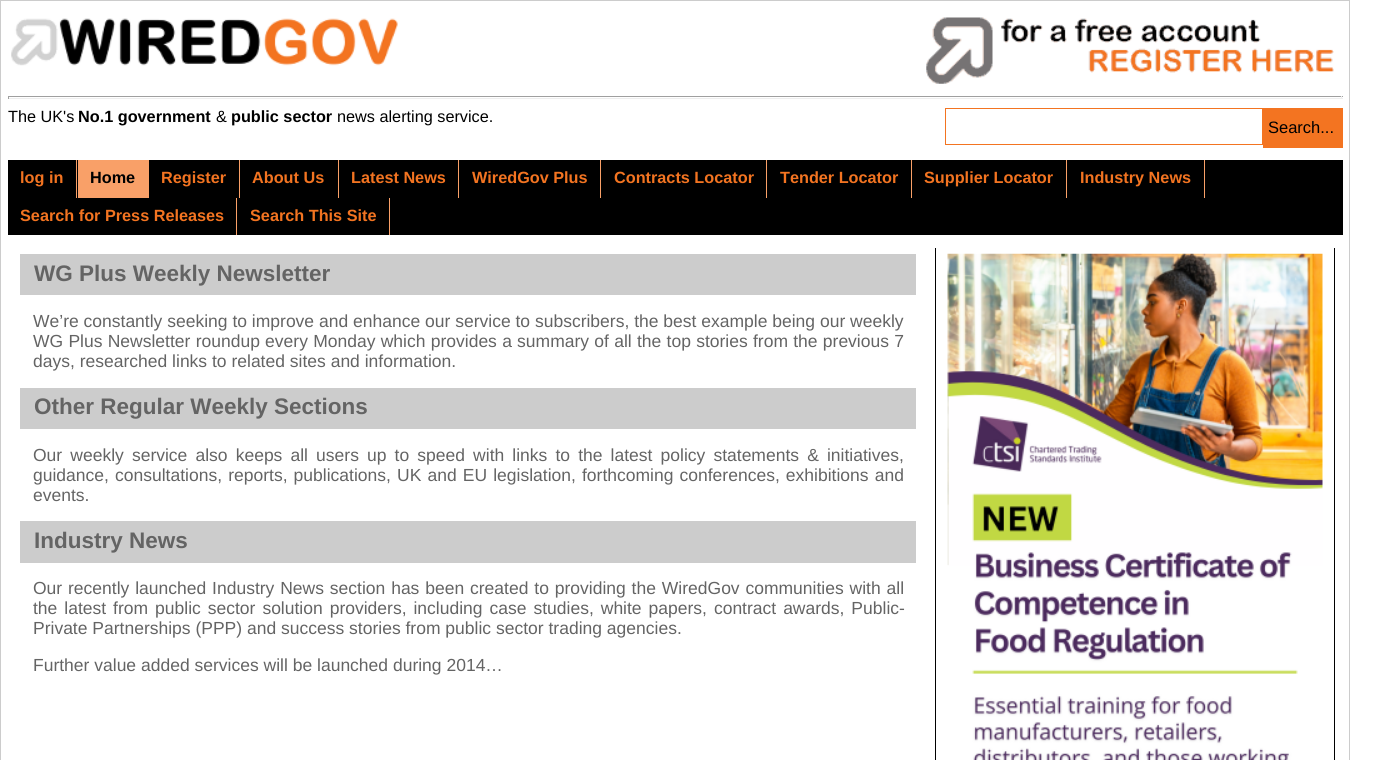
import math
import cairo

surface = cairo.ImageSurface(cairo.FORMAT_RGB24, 1377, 760)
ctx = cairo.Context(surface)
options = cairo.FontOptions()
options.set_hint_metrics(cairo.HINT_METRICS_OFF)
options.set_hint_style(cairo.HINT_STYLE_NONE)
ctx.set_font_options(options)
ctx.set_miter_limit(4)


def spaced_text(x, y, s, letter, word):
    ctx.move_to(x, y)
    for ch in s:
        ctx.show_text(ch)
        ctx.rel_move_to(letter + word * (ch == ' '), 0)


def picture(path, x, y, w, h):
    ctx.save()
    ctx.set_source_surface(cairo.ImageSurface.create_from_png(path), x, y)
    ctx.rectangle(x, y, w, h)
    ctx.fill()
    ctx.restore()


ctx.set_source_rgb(1, 1, 1)
ctx.paint()
ctx.rectangle(0.5, 0.5, 1349, 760)
ctx.set_source_rgb(0.8, 0.8, 0.8)
ctx.set_line_width(1)
ctx.stroke()
picture("img1.png", 11, 18, 387, 48)
picture("img2.png", 926, 17, 408, 67)
ctx.set_source_rgb(0.624, 0.624, 0.624)
ctx.rectangle(8, 96, 1335, 1)
ctx.fill()
ctx.set_source_rgb(0.933, 0.933, 0.933)
ctx.rectangle(1341, 96, 1, 3)
ctx.fill()
ctx.rectangle(8, 98, 1335, 1)
ctx.fill()
ctx.set_source_rgb(0.624, 0.624, 0.624)
ctx.rectangle(8, 96, 1, 3)
ctx.fill()
ctx.select_font_face("Liberation Sans")
ctx.set_font_size(16.25)
ctx.set_source_rgb(0, 0, 0)
ctx.move_to(8, 122)
ctx.show_text("The UK's")
ctx.select_font_face("Liberation Sans", cairo.FONT_SLANT_NORMAL, cairo.FONT_WEIGHT_BOLD)
ctx.move_to(78, 122)
ctx.show_text("No.1 government")
ctx.select_font_face("Liberation Sans")
ctx.move_to(216, 122)
ctx.show_text("&")
ctx.select_font_face("Liberation Sans", cairo.FONT_SLANT_NORMAL, cairo.FONT_WEIGHT_BOLD)
ctx.move_to(231, 122)
ctx.show_text("public sector")
ctx.select_font_face("Liberation Sans")
ctx.move_to(337, 122)
ctx.show_text("news alerting service.")
ctx.rectangle(945.5, 108.5, 317, 36)
ctx.set_source_rgb(0.953, 0.455, 0.129)
ctx.stroke()
ctx.rectangle(1263, 108, 80, 40)
ctx.fill()
ctx.set_font_size(16.5)
ctx.set_source_rgb(0, 0, 0)
ctx.move_to(1268, 133)
ctx.show_text("Search...")
ctx.rectangle(8, 160, 1335, 75)
ctx.fill()
ctx.set_source_rgb(0.976, 0.627, 0.408)
ctx.rectangle(76, 160, 1, 38)
ctx.fill()
ctx.select_font_face("Liberation Sans", cairo.FONT_SLANT_NORMAL, cairo.FONT_WEIGHT_BOLD)
ctx.set_font_size(16.25)
ctx.set_source_rgb(0.953, 0.455, 0.129)
ctx.move_to(20, 183)
ctx.show_text("log in")
ctx.set_source_rgb(0.976, 0.627, 0.408)
ctx.rectangle(78, 160, 71, 38)
ctx.fill()
ctx.set_source_rgb(0, 0, 0)
ctx.move_to(90, 183)
ctx.show_text("Home")
ctx.set_source_rgb(0.976, 0.627, 0.408)
ctx.rectangle(239, 160, 1, 38)
ctx.fill()
ctx.set_source_rgb(0.953, 0.455, 0.129)
ctx.move_to(161, 183)
ctx.show_text("Register")
ctx.set_source_rgb(0.976, 0.627, 0.408)
ctx.rectangle(338, 160, 1, 38)
ctx.fill()
ctx.set_source_rgb(0.953, 0.455, 0.129)
ctx.move_to(252, 183)
ctx.show_text("About Us")
ctx.set_source_rgb(0.976, 0.627, 0.408)
ctx.rectangle(458, 160, 1, 38)
ctx.fill()
ctx.set_source_rgb(0.953, 0.455, 0.129)
ctx.move_to(351, 183)
ctx.show_text("Latest News")
ctx.set_source_rgb(0.976, 0.627, 0.408)
ctx.rectangle(600, 160, 1, 38)
ctx.fill()
ctx.set_source_rgb(0.953, 0.455, 0.129)
ctx.move_to(472, 183)
ctx.show_text("WiredGov Plus")
ctx.set_source_rgb(0.976, 0.627, 0.408)
ctx.rectangle(766, 160, 1, 38)
ctx.fill()
ctx.set_source_rgb(0.953, 0.455, 0.129)
ctx.move_to(614, 183)
ctx.show_text("Contracts Locator")
ctx.set_source_rgb(0.976, 0.627, 0.408)
ctx.rectangle(911, 160, 1, 38)
ctx.fill()
ctx.set_source_rgb(0.953, 0.455, 0.129)
ctx.move_to(780, 183)
ctx.show_text("Tender Locator")
ctx.set_source_rgb(0.976, 0.627, 0.408)
ctx.rectangle(1066, 160, 1, 38)
ctx.fill()
ctx.set_source_rgb(0.953, 0.455, 0.129)
ctx.move_to(924, 183)
ctx.show_text("Supplier Locator")
ctx.set_source_rgb(0.976, 0.627, 0.408)
ctx.rectangle(1204, 160, 1, 38)
ctx.fill()
ctx.set_source_rgb(0.953, 0.455, 0.129)
ctx.move_to(1080, 183)
ctx.show_text("Industry News")
ctx.set_source_rgb(0.976, 0.627, 0.408)
ctx.rectangle(236, 198, 1, 37)
ctx.fill()
ctx.set_source_rgb(0.953, 0.455, 0.129)
ctx.move_to(20, 221)
ctx.show_text("Search for Press Releases")
ctx.set_source_rgb(0.976, 0.627, 0.408)
ctx.rectangle(389, 198, 1, 37)
ctx.fill()
ctx.set_source_rgb(0.953, 0.455, 0.129)
ctx.move_to(250, 221)
ctx.show_text("Search This Site")
ctx.set_source_rgb(0.8, 0.8, 0.8)
ctx.rectangle(20, 254, 896, 41)
ctx.fill()
ctx.set_font_size(22.5)
ctx.set_source_rgb(0.392, 0.392, 0.392)
ctx.move_to(34, 281)
ctx.show_text("WG Plus Weekly Newsletter")
ctx.select_font_face("Liberation Sans")
ctx.set_font_size(17.5)
ctx.move_to(33, 327)
ctx.show_text("We’re constantly seeking to improve and enhance our service to subscribers, the best example being our weekly")
spaced_text(33, 347, "WG Plus Newsletter roundup every Monday which provides a summary of all the top stories from the previous 7", 0, 0.4)
ctx.move_to(33, 367)
ctx.show_text("days, researched links to related sites and information.")
ctx.set_source_rgb(0.8, 0.8, 0.8)
ctx.rectangle(20, 388, 896, 41)
ctx.fill()
ctx.select_font_face("Liberation Sans", cairo.FONT_SLANT_NORMAL, cairo.FONT_WEIGHT_BOLD)
ctx.set_font_size(22.5)
ctx.set_source_rgb(0.392, 0.392, 0.392)
ctx.move_to(34, 414)
ctx.show_text("Other Regular Weekly Sections")
ctx.select_font_face("Liberation Sans")
ctx.set_font_size(17.5)
spaced_text(33, 461, "Our weekly service also keeps all users up to speed with links to the latest policy statements & initiatives,", 0, 3.25)
spaced_text(33, 481, "guidance, consultations, reports, publications, UK and EU legislation, forthcoming conferences, exhibitions and", 0, 1.25)
ctx.move_to(33, 501)
ctx.show_text("events.")
ctx.set_source_rgb(0.8, 0.8, 0.8)
ctx.rectangle(20, 521, 896, 42)
ctx.fill()
ctx.select_font_face("Liberation Sans", cairo.FONT_SLANT_NORMAL, cairo.FONT_WEIGHT_BOLD)
ctx.set_font_size(22.5)
ctx.set_source_rgb(0.392, 0.392, 0.392)
ctx.move_to(34, 548)
ctx.show_text("Industry News")
ctx.select_font_face("Liberation Sans")
ctx.set_font_size(17.5)
spaced_text(33, 594, "Our recently launched Industry News section has been created to providing the WiredGov communities with all", 0, 1)
spaced_text(33, 614, "the latest from public sector solution providers, including case studies, white papers, contract awards, Public-", 0, 2.1)
ctx.move_to(33, 634)
ctx.show_text("Private Partnerships (PPP) and success stories from public sector trading agencies.")
ctx.move_to(33, 671)
ctx.show_text("Further value added services will be launched during 2014…")
ctx.set_source_rgb(0, 0, 0)
ctx.rectangle(1334, 248, 1, 512)
ctx.fill()
ctx.rectangle(935, 248, 1, 512)
ctx.fill()
picture("img3.png", 947, 253, 376, 507)
surface.write_to_png("page.png")
